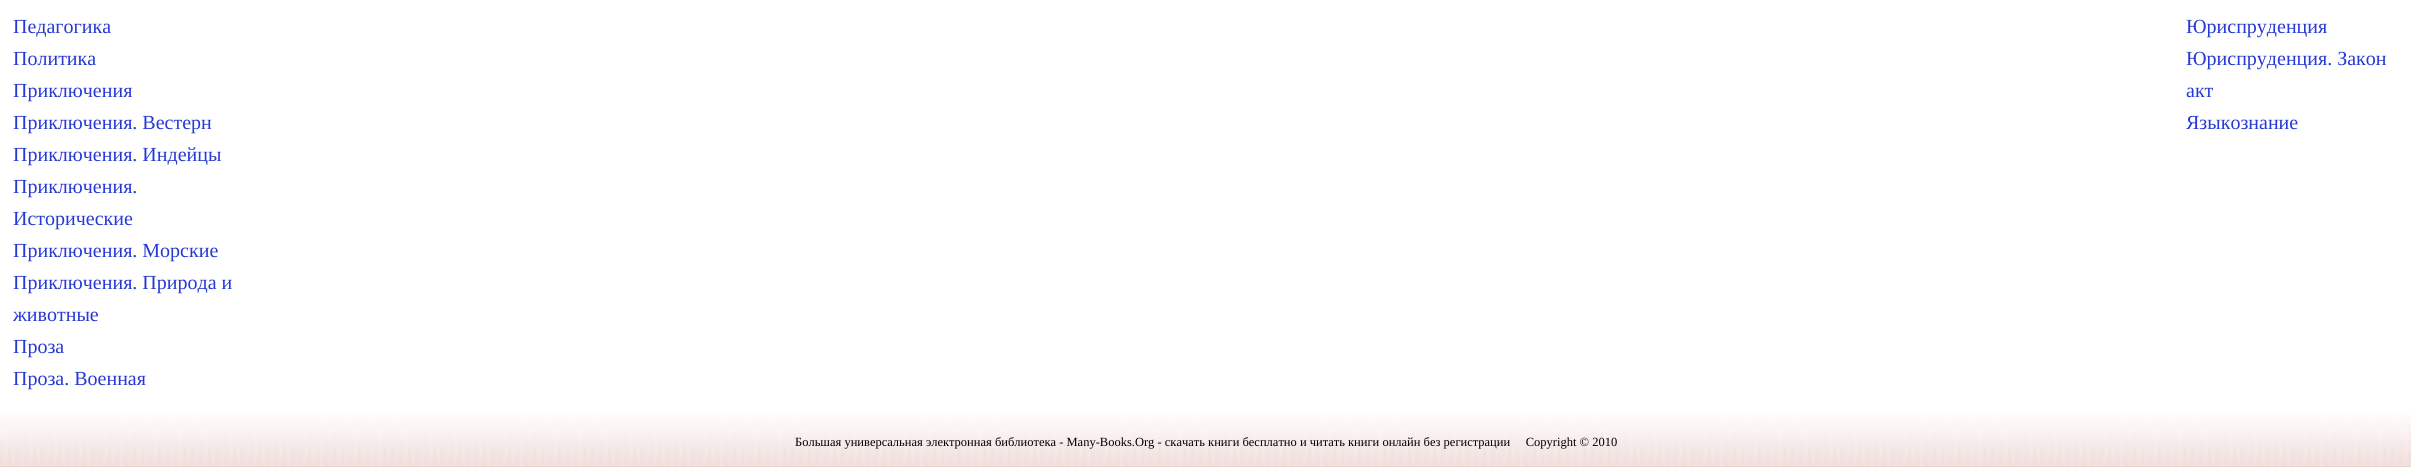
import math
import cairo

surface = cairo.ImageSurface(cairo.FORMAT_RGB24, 2411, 467)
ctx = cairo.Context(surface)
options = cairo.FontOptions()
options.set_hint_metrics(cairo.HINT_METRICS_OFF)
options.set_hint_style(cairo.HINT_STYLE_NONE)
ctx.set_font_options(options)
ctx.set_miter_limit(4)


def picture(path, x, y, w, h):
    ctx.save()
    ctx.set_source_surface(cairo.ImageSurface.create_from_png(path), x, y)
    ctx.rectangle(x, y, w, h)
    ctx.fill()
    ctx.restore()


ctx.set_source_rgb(1, 1, 1)
ctx.paint()
ctx.select_font_face("Liberation Serif")
ctx.set_font_size(20)
ctx.set_source_rgb(0.145, 0.224, 0.831)
ctx.move_to(13, 33)
ctx.show_text("Педагогика")
ctx.move_to(13, 65)
ctx.show_text("Политика")
ctx.move_to(13, 97)
ctx.show_text("Приключения")
ctx.move_to(13, 129)
ctx.show_text("Приключения. Вестерн")
ctx.move_to(13, 161)
ctx.show_text("Приключения. Индейцы")
ctx.move_to(13, 193)
ctx.show_text("Приключения.")
ctx.move_to(13, 225)
ctx.show_text("Исторические")
ctx.move_to(13, 257)
ctx.show_text("Приключения. Морские")
ctx.move_to(13, 289)
ctx.show_text("Приключения. Природа и")
ctx.move_to(13, 321)
ctx.show_text("животные")
ctx.move_to(13, 353)
ctx.show_text("Проза")
ctx.move_to(13, 385)
ctx.show_text("Проза. Военная")
ctx.move_to(2186, 33)
ctx.show_text("Юриспруденция")
ctx.move_to(2186, 65)
ctx.show_text("Юриспруденция. Закон")
ctx.move_to(2186, 97)
ctx.show_text("акт")
ctx.move_to(2186, 129)
ctx.show_text("Языкознание")
picture("img1.png", 0, 413, 2411, 54)
ctx.set_font_size(12.5)
ctx.set_source_rgb(0, 0, 0)
ctx.move_to(795, 446)
ctx.show_text("Большая универсальная электронная библиотека - Many-Books.Org - скачать книги бесплатно и читать книги онлайн без регистрации     Copyright © 2010")
surface.write_to_png("page.png")
